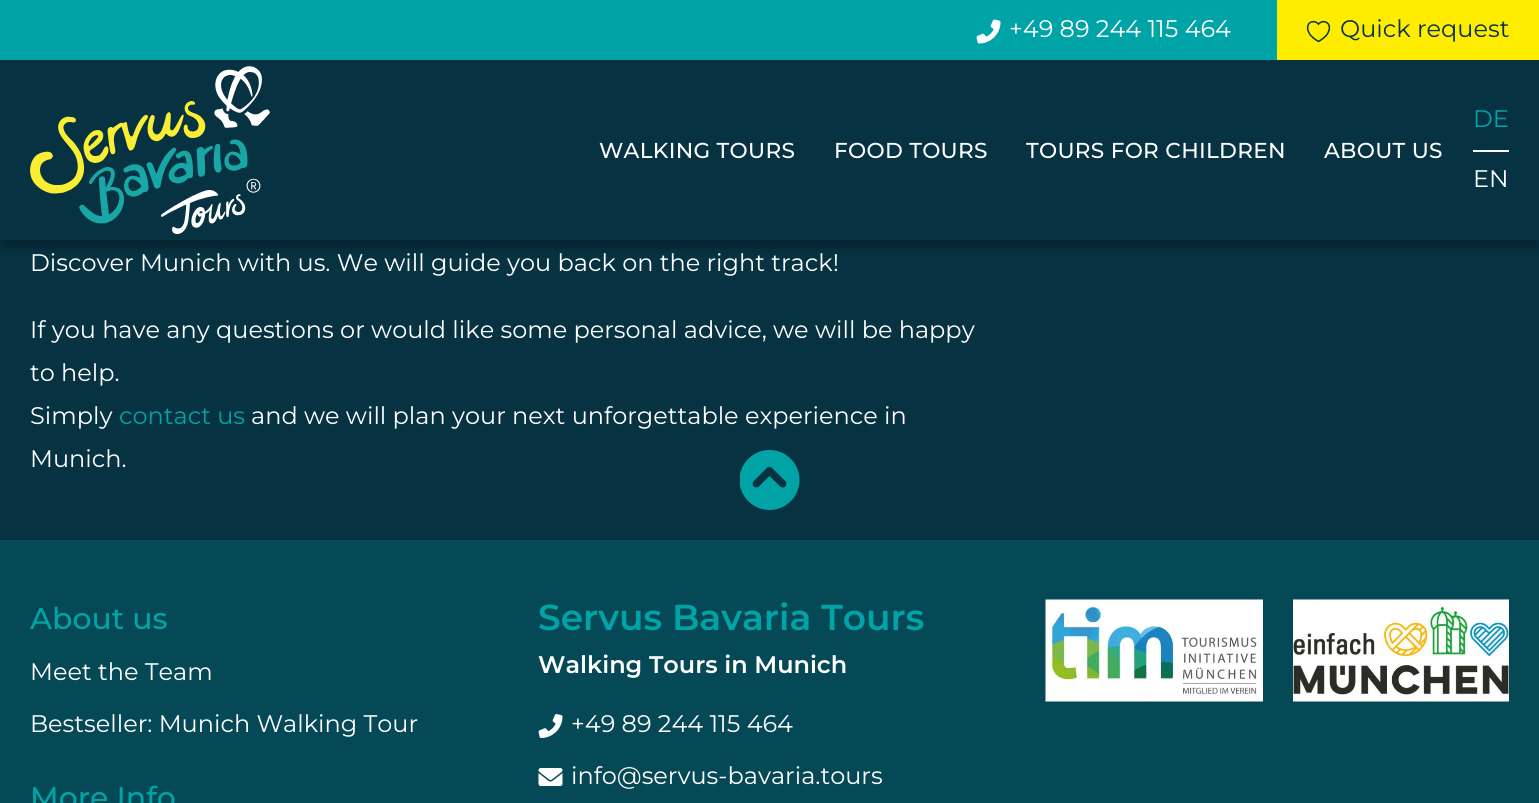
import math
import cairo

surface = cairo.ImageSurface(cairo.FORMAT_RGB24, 1539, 803)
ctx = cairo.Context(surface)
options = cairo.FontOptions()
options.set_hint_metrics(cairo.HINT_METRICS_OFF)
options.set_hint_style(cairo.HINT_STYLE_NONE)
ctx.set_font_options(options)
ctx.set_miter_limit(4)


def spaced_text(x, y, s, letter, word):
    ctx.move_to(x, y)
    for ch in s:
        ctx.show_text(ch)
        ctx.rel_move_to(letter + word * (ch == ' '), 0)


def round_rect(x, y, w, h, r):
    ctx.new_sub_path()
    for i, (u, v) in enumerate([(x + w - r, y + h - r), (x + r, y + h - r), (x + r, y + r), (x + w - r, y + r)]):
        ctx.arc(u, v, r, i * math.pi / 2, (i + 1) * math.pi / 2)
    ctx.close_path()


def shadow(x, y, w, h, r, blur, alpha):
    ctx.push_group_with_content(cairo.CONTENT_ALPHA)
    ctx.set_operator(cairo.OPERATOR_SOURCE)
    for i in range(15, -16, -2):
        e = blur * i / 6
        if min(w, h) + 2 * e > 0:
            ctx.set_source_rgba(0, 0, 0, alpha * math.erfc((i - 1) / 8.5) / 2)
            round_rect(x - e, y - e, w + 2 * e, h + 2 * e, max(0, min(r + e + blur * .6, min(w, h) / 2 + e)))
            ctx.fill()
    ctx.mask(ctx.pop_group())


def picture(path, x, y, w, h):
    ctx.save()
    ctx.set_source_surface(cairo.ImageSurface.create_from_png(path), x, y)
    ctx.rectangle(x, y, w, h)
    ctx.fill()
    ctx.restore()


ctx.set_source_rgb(0.027, 0.196, 0.259)
ctx.paint()
ctx.set_source_rgb(0, 0, 0)
shadow(0, 8, 1539, 240, 0, 5, 0.26)
ctx.set_source_rgb(0.027, 0.196, 0.259)
ctx.rectangle(0, 60, 1539, 180)
ctx.fill()
ctx.set_source_rgb(0, 0.639, 0.651)
ctx.rectangle(0, 0, 1277, 60)
ctx.fill()
picture("img1.png", 976, 19, 25, 25)
ctx.select_font_face("Montserrat Thin")
ctx.set_font_size(24)
ctx.set_source_rgb(1, 1, 1)
ctx.move_to(1009, 37)
ctx.show_text("+49 89 244 115 464")
ctx.set_source_rgb(1, 0.929, 0)
ctx.rectangle(1277, 0, 262, 60)
ctx.fill()
picture("img2.png", 1306, 20, 25, 23)
ctx.set_source_rgb(0.027, 0.196, 0.259)
ctx.move_to(1340, 37)
ctx.show_text("Quick request")
picture("img3.png", 30, 66, 240, 168)
ctx.select_font_face("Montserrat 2 Thin")
ctx.set_font_size(21.6)
ctx.set_source_rgb(1, 1, 1)
spaced_text(599, 158, "WALKING TOURS", 0.3, 0)
spaced_text(834, 158, "FOOD TOURS", 0.3, 0)
spaced_text(1026, 158, "TOURS FOR CHILDREN", 0.3, 0)
spaced_text(1324, 158, "ABOUT US", 0.3, 0)
ctx.select_font_face("Montserrat Thin")
ctx.set_font_size(24)
ctx.set_source_rgb(0, 0.639, 0.651)
ctx.move_to(1473, 127)
ctx.show_text("DE")
ctx.set_source_rgb(1, 1, 1)
ctx.rectangle(1473, 150, 36, 2)
ctx.fill()
ctx.move_to(1473, 187)
ctx.show_text("EN")
ctx.move_to(30, 271)
ctx.show_text("Discover Munich with us. We will guide you back on the right track!")
ctx.move_to(30, 338)
ctx.show_text("If you have any questions or would like some personal advice, we will be happy")
ctx.move_to(30, 381)
ctx.show_text("to help.")
ctx.move_to(30, 424)
ctx.show_text("Simply")
ctx.set_source_rgb(0, 0.639, 0.651)
ctx.move_to(119, 424)
ctx.show_text("contact us")
ctx.set_source_rgb(1, 1, 1)
ctx.move_to(251, 424)
ctx.show_text("and we will plan your next unforgettable experience in")
ctx.move_to(30, 467)
ctx.show_text("Munich.")
ctx.set_source_rgb(0.024, 0.286, 0.337)
ctx.rectangle(0, 540, 1539, 263)
ctx.fill()
picture("img4.png", 740, 450, 60, 60)
ctx.select_font_face("Montserrat 2 Thin")
ctx.set_font_size(30)
ctx.set_source_rgb(0, 0.639, 0.651)
ctx.move_to(30, 629)
ctx.show_text("About us")
ctx.select_font_face("Montserrat Thin")
ctx.set_font_size(24)
ctx.set_source_rgb(1, 1, 1)
ctx.move_to(30, 680)
ctx.show_text("Meet the Team")
ctx.move_to(30, 732)
ctx.show_text("Bestseller: Munich Walking Tour")
ctx.select_font_face("Montserrat 2 Thin")
ctx.set_font_size(30)
ctx.set_source_rgb(0, 0.639, 0.651)
ctx.move_to(30, 808)
ctx.show_text("More Info")
ctx.select_font_face("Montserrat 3 Thin")
ctx.set_font_size(36)
ctx.move_to(538, 630)
ctx.show_text("Servus Bavaria Tours")
ctx.set_font_size(24)
ctx.set_source_rgb(1, 1, 1)
ctx.move_to(538, 673)
ctx.show_text("Walking Tours in Munich")
picture("img5.png", 538, 714, 25, 24)
ctx.select_font_face("Montserrat Thin")
ctx.move_to(571, 732)
ctx.show_text("+49 89 244 115 464")
picture("img6.png", 538, 768, 25, 18)
ctx.move_to(571, 784)
ctx.show_text("info@servus-bavaria.tours")
picture("img7.png", 1045, 599, 218, 103)
picture("img8.png", 1293, 599, 216, 103)
surface.write_to_png("page.png")
